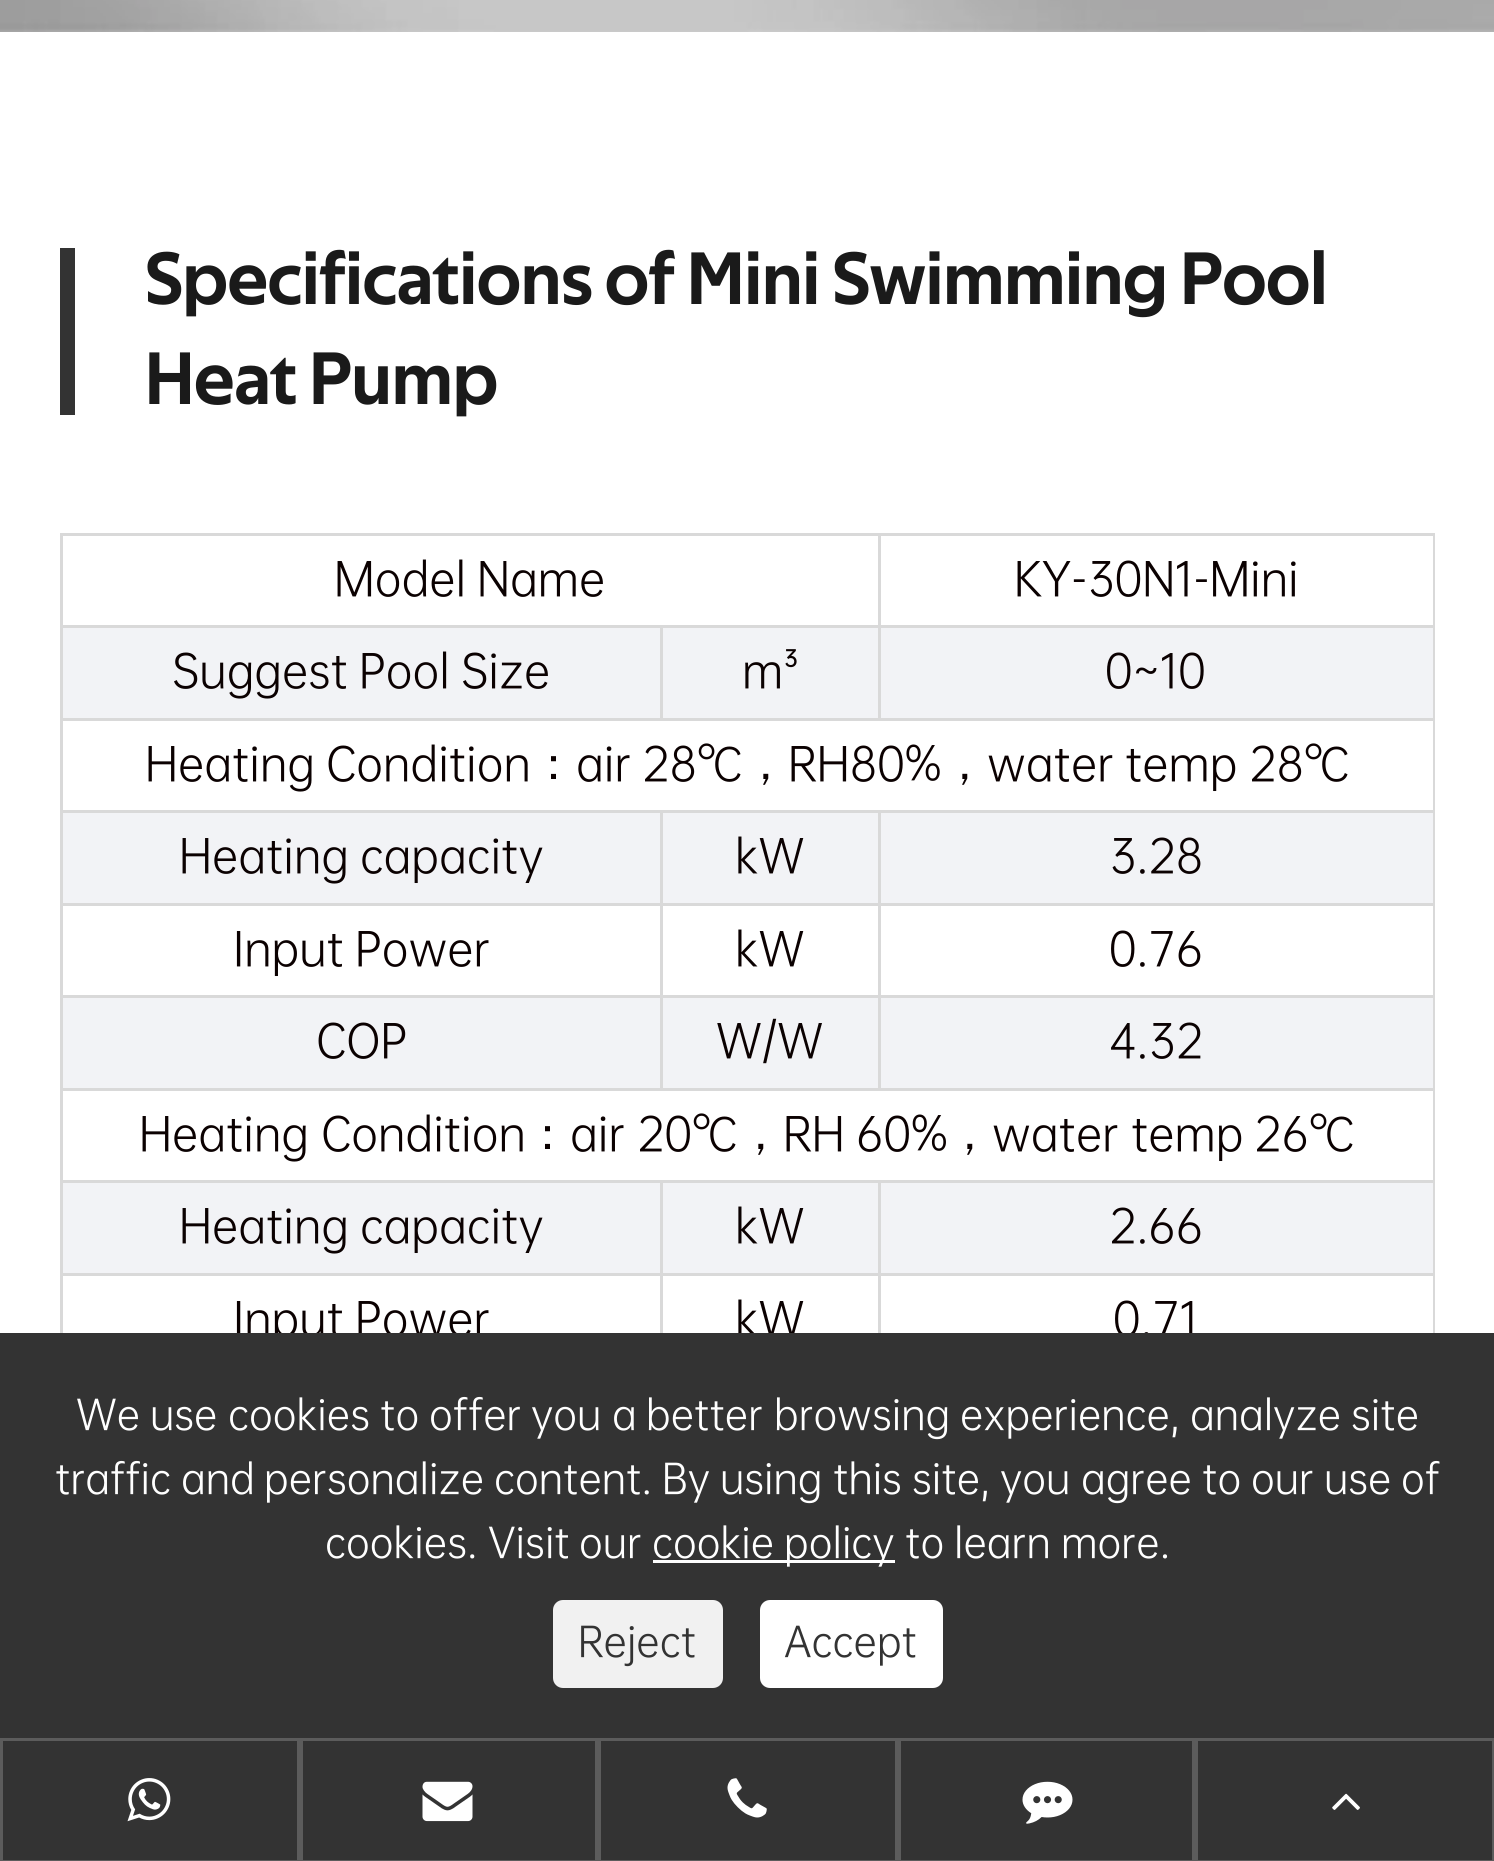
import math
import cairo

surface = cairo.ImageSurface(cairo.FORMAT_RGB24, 1494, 1861)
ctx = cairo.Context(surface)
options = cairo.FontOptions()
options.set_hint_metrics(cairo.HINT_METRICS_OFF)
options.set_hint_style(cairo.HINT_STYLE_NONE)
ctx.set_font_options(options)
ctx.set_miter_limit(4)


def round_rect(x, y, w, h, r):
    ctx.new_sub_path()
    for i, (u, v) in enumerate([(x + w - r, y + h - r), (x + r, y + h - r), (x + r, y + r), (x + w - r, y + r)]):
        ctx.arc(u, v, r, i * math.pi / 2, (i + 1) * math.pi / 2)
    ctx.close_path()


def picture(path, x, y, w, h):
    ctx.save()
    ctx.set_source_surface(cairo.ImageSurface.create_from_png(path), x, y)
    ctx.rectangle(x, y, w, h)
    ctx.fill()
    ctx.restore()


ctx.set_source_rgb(1, 1, 1)
ctx.paint()
picture("img1.png", 0, 0, 1494, 32)
ctx.set_source_rgb(0.2, 0.2, 0.2)
ctx.rectangle(60, 248, 15, 167)
ctx.fill()
ctx.select_font_face("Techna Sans")
ctx.set_font_size(75)
ctx.set_source_rgb(0.102, 0.102, 0.102)
ctx.move_to(145, 304)
ctx.show_text("Specifications of Mini Swimming Pool")
ctx.move_to(145, 404)
ctx.show_text("Heat Pump")
ctx.set_source_rgb(0.851, 0.851, 0.851)
ctx.rectangle(878, 533, 557, 3)
ctx.fill()
ctx.rectangle(878, 625, 557, 3)
ctx.fill()
ctx.set_source_rgb(0.949, 0.953, 0.961)
ctx.rectangle(63, 628, 1370, 90)
ctx.fill()
ctx.set_source_rgb(0.851, 0.851, 0.851)
ctx.rectangle(60, 718, 1375, 3)
ctx.fill()
ctx.rectangle(878, 625, 3, 95)
ctx.fill()
ctx.rectangle(660, 625, 220, 3)
ctx.fill()
ctx.rectangle(878, 533, 3, 95)
ctx.fill()
ctx.rectangle(60, 533, 820, 3)
ctx.fill()
ctx.rectangle(660, 625, 3, 95)
ctx.fill()
ctx.rectangle(60, 625, 603, 3)
ctx.fill()
ctx.rectangle(878, 810, 557, 3)
ctx.fill()
ctx.set_source_rgb(0.949, 0.953, 0.961)
ctx.rectangle(63, 813, 1370, 90)
ctx.fill()
ctx.set_source_rgb(0.851, 0.851, 0.851)
ctx.rectangle(878, 903, 557, 3)
ctx.fill()
ctx.rectangle(878, 995, 557, 3)
ctx.fill()
ctx.set_source_rgb(0.949, 0.953, 0.961)
ctx.rectangle(63, 998, 1370, 90)
ctx.fill()
ctx.set_source_rgb(0.851, 0.851, 0.851)
ctx.rectangle(60, 1088, 1375, 3)
ctx.fill()
ctx.rectangle(878, 995, 3, 95)
ctx.fill()
ctx.rectangle(660, 995, 220, 3)
ctx.fill()
ctx.rectangle(878, 903, 3, 95)
ctx.fill()
ctx.rectangle(660, 903, 220, 3)
ctx.fill()
ctx.rectangle(878, 810, 3, 95)
ctx.fill()
ctx.rectangle(660, 810, 220, 3)
ctx.fill()
ctx.rectangle(660, 995, 3, 95)
ctx.fill()
ctx.rectangle(60, 995, 603, 3)
ctx.fill()
ctx.rectangle(660, 903, 3, 95)
ctx.fill()
ctx.rectangle(60, 903, 603, 3)
ctx.fill()
ctx.rectangle(660, 810, 3, 95)
ctx.fill()
ctx.rectangle(60, 810, 603, 3)
ctx.fill()
ctx.rectangle(878, 1180, 557, 3)
ctx.fill()
ctx.set_source_rgb(0.949, 0.953, 0.961)
ctx.rectangle(63, 1183, 1370, 90)
ctx.fill()
ctx.set_source_rgb(0.851, 0.851, 0.851)
ctx.rectangle(878, 1273, 557, 3)
ctx.fill()
ctx.rectangle(878, 1273, 3, 60)
ctx.fill()
ctx.rectangle(660, 1273, 220, 3)
ctx.fill()
ctx.rectangle(878, 1180, 3, 95)
ctx.fill()
ctx.rectangle(660, 1180, 220, 3)
ctx.fill()
ctx.rectangle(660, 1273, 3, 60)
ctx.fill()
ctx.rectangle(60, 1273, 603, 3)
ctx.fill()
ctx.rectangle(660, 1180, 3, 95)
ctx.fill()
ctx.rectangle(60, 1180, 603, 3)
ctx.fill()
ctx.rectangle(60, 1273, 3, 60)
ctx.fill()
ctx.rectangle(60, 1180, 3, 95)
ctx.fill()
ctx.rectangle(60, 1088, 3, 95)
ctx.fill()
ctx.rectangle(60, 995, 3, 95)
ctx.fill()
ctx.rectangle(60, 903, 3, 95)
ctx.fill()
ctx.rectangle(60, 810, 3, 95)
ctx.fill()
ctx.rectangle(60, 718, 3, 95)
ctx.fill()
ctx.rectangle(60, 625, 3, 95)
ctx.fill()
ctx.rectangle(60, 533, 3, 95)
ctx.fill()
ctx.select_font_face("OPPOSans")
ctx.set_font_size(45)
ctx.set_source_rgb(0.043, 0.004, 0.004)
ctx.move_to(334, 594)
ctx.show_text("Model")
ctx.move_to(477, 594)
ctx.show_text("Name")
ctx.set_source_rgb(0.851, 0.851, 0.851)
ctx.rectangle(1433, 1273, 2, 60)
ctx.fill()
ctx.rectangle(1433, 1180, 2, 95)
ctx.fill()
ctx.rectangle(1433, 1088, 2, 95)
ctx.fill()
ctx.rectangle(1433, 995, 2, 95)
ctx.fill()
ctx.rectangle(1433, 903, 2, 95)
ctx.fill()
ctx.rectangle(1433, 810, 2, 95)
ctx.fill()
ctx.rectangle(1433, 718, 2, 95)
ctx.fill()
ctx.rectangle(1433, 625, 2, 95)
ctx.fill()
ctx.rectangle(1433, 533, 2, 95)
ctx.fill()
ctx.set_source_rgb(0.043, 0.004, 0.004)
ctx.move_to(1014, 594)
ctx.show_text("KY-30N1-Mini")
ctx.move_to(172, 686)
ctx.show_text("Suggest")
ctx.move_to(359, 686)
ctx.show_text("Pool")
ctx.move_to(461, 686)
ctx.show_text("Size")
ctx.move_to(742, 686)
ctx.show_text("m³")
ctx.move_to(1105, 686)
ctx.show_text("0~10")
ctx.move_to(145, 779)
ctx.show_text("Heating")
ctx.move_to(326, 779)
ctx.show_text("Condition")
ctx.select_font_face("WenQuanYi Zen Hei Medium")
ctx.move_to(531, 779)
ctx.show_text("：")
ctx.select_font_face("OPPOSans")
ctx.move_to(576, 779)
ctx.show_text("air")
ctx.move_to(642, 779)
ctx.show_text("28℃")
ctx.select_font_face("WenQuanYi Zen Hei Medium")
ctx.move_to(743, 779)
ctx.show_text("，")
ctx.select_font_face("OPPOSans")
ctx.move_to(788, 779)
ctx.show_text("RH80%")
ctx.select_font_face("WenQuanYi Zen Hei Medium")
ctx.move_to(942, 779)
ctx.show_text("，")
ctx.select_font_face("OPPOSans")
ctx.move_to(987, 779)
ctx.show_text("water")
ctx.move_to(1125, 779)
ctx.show_text("temp")
ctx.move_to(1249, 779)
ctx.show_text("28℃")
ctx.move_to(179, 871)
ctx.show_text("Heating")
ctx.move_to(360, 871)
ctx.show_text("capacity")
ctx.move_to(735, 871)
ctx.show_text("kW")
ctx.move_to(1109, 871)
ctx.show_text("3.28")
ctx.move_to(233, 964)
ctx.show_text("Input")
ctx.move_to(355, 964)
ctx.show_text("Power")
ctx.move_to(735, 964)
ctx.show_text("kW")
ctx.move_to(1109, 964)
ctx.show_text("0.76")
ctx.move_to(316, 1056)
ctx.show_text("COP")
ctx.move_to(716, 1056)
ctx.show_text("W/W")
ctx.move_to(1109, 1056)
ctx.show_text("4.32")
ctx.move_to(139, 1149)
ctx.show_text("Heating")
ctx.move_to(321, 1149)
ctx.show_text("Condition")
ctx.select_font_face("WenQuanYi Zen Hei Medium")
ctx.move_to(525, 1149)
ctx.show_text("：")
ctx.select_font_face("OPPOSans")
ctx.move_to(570, 1149)
ctx.show_text("air")
ctx.move_to(637, 1149)
ctx.show_text("20℃")
ctx.select_font_face("WenQuanYi Zen Hei Medium")
ctx.move_to(738, 1149)
ctx.show_text("，")
ctx.select_font_face("OPPOSans")
ctx.move_to(783, 1149)
ctx.show_text("RH")
ctx.move_to(856, 1149)
ctx.show_text("60%")
ctx.select_font_face("WenQuanYi Zen Hei Medium")
ctx.move_to(947, 1149)
ctx.show_text("，")
ctx.select_font_face("OPPOSans")
ctx.move_to(992, 1149)
ctx.show_text("water")
ctx.move_to(1131, 1149)
ctx.show_text("temp")
ctx.move_to(1254, 1149)
ctx.show_text("26℃")
ctx.move_to(179, 1241)
ctx.show_text("Heating")
ctx.move_to(360, 1241)
ctx.show_text("capacity")
ctx.move_to(735, 1241)
ctx.show_text("kW")
ctx.move_to(1109, 1241)
ctx.show_text("2.66")
ctx.move_to(233, 1334)
ctx.show_text("Input")
ctx.move_to(355, 1334)
ctx.show_text("Power")
ctx.move_to(735, 1334)
ctx.show_text("kW")
ctx.move_to(1113, 1334)
ctx.show_text("0.71")
ctx.set_source_rgb(0.2, 0.2, 0.2)
ctx.rectangle(0, 1333, 1494, 405)
ctx.fill()
ctx.set_font_size(40)
ctx.set_source_rgb(1, 1, 1)
ctx.move_to(76, 1428)
ctx.show_text("We")
ctx.move_to(150, 1428)
ctx.show_text("use")
ctx.move_to(228, 1428)
ctx.show_text("cookies")
ctx.move_to(380, 1428)
ctx.show_text("to")
ctx.move_to(429, 1428)
ctx.show_text("offer")
ctx.move_to(531, 1428)
ctx.show_text("you")
ctx.move_to(612, 1428)
ctx.show_text("a")
ctx.move_to(646, 1428)
ctx.show_text("better")
ctx.move_to(774, 1428)
ctx.show_text("browsing")
ctx.move_to(960, 1428)
ctx.show_text("experience,")
ctx.move_to(1190, 1428)
ctx.show_text("analyze")
ctx.move_to(1351, 1428)
ctx.show_text("site")
ctx.move_to(55, 1492)
ctx.show_text("traffic")
ctx.move_to(181, 1492)
ctx.show_text("and")
ctx.move_to(264, 1492)
ctx.show_text("personalize")
ctx.move_to(494, 1492)
ctx.show_text("content.")
ctx.move_to(662, 1492)
ctx.show_text("By")
ctx.move_to(720, 1492)
ctx.show_text("using")
ctx.move_to(833, 1492)
ctx.show_text("this")
ctx.move_to(912, 1492)
ctx.show_text("site,")
ctx.move_to(1000, 1492)
ctx.show_text("you")
ctx.move_to(1081, 1492)
ctx.show_text("agree")
ctx.move_to(1202, 1492)
ctx.show_text("to")
ctx.move_to(1251, 1492)
ctx.show_text("our")
ctx.move_to(1324, 1492)
ctx.show_text("use")
ctx.move_to(1401, 1492)
ctx.show_text("of")
ctx.move_to(325, 1556)
ctx.show_text("cookies.")
ctx.move_to(488, 1556)
ctx.show_text("Visit")
ctx.move_to(579, 1556)
ctx.show_text("our")
ctx.move_to(652, 1556)
ctx.show_text("cookie")
ctx.rectangle(653, 1560, 242, 3)
ctx.fill()
ctx.move_to(784, 1556)
ctx.show_text("policy")
ctx.move_to(905, 1556)
ctx.show_text("to")
ctx.move_to(954, 1556)
ctx.show_text("learn")
ctx.move_to(1061, 1556)
ctx.show_text("more.")
ctx.set_source_rgb(0.945, 0.945, 0.945)
round_rect(553, 1600, 170, 88, 10)
ctx.fill()
ctx.set_source_rgb(0.2, 0.2, 0.2)
ctx.move_to(578, 1655)
ctx.show_text("Reject")
ctx.set_source_rgb(1, 1, 1)
round_rect(760, 1600, 183, 88, 10)
ctx.fill()
ctx.set_source_rgb(0.2, 0.2, 0.2)
ctx.move_to(784, 1655)
ctx.show_text("Accept")
ctx.rectangle(1.5, 1739.5, 297, 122)
ctx.fill_preserve()
ctx.set_source_rgb(0.361, 0.361, 0.361)
ctx.set_line_width(3)
ctx.stroke()
picture("img2.png", 127, 1778, 44, 44)
ctx.set_source_rgb(0.2, 0.2, 0.2)
ctx.rectangle(301.5, 1739.5, 295, 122)
ctx.fill_preserve()
ctx.set_source_rgb(0.361, 0.361, 0.361)
ctx.stroke()
picture("img3.png", 422, 1781, 51, 41)
ctx.set_source_rgb(0.2, 0.2, 0.2)
ctx.rectangle(599.5, 1739.5, 297, 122)
ctx.fill_preserve()
ctx.set_source_rgb(0.361, 0.361, 0.361)
ctx.stroke()
picture("img4.png", 727, 1778, 40, 40)
ctx.set_source_rgb(0.2, 0.2, 0.2)
ctx.rectangle(899.5, 1739.5, 294, 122)
ctx.fill_preserve()
ctx.set_source_rgb(0.361, 0.361, 0.361)
ctx.stroke()
picture("img5.png", 1022, 1781, 51, 43)
ctx.set_source_rgb(0.2, 0.2, 0.2)
ctx.rectangle(1196.5, 1739.5, 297, 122)
ctx.fill_preserve()
ctx.set_source_rgb(0.361, 0.361, 0.361)
ctx.stroke()
picture("img6.png", 1332, 1793, 28, 17)
surface.write_to_png("page.png")
